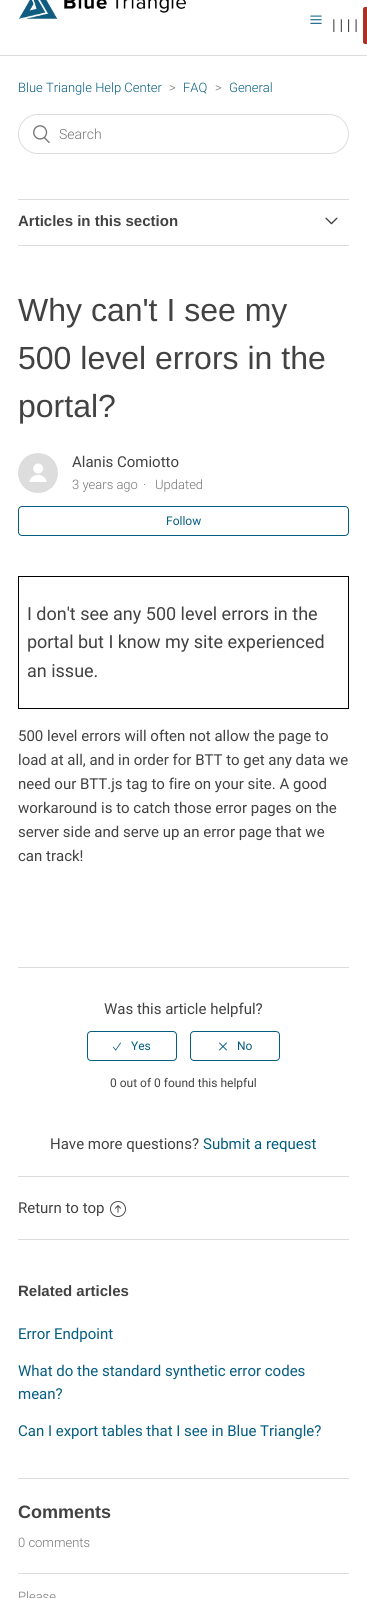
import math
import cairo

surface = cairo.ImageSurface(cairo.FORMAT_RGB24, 367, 1598)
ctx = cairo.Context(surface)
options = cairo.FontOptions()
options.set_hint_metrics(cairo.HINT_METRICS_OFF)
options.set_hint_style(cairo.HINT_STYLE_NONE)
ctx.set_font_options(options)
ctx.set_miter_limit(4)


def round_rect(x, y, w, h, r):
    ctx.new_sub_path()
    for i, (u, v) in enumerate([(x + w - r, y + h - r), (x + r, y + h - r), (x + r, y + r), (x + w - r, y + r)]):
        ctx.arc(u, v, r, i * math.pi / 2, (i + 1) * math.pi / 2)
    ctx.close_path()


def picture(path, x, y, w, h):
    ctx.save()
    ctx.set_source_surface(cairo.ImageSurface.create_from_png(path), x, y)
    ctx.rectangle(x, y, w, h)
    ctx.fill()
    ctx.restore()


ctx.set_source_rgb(1, 1, 1)
ctx.paint()
picture("img1.png", 18, 0, 168, 19)
picture("img2.png", 310, 15, 12, 9)
ctx.select_font_face("Roboto")
ctx.set_font_size(15)
ctx.set_source_rgb(0.259, 0.259, 0.259)
ctx.move_to(332, 30)
ctx.show_text("| | | |")
ctx.set_source_rgb(0.667, 0.196, 0.145)
round_rect(362, 6, 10, 39, 3)
ctx.fill_preserve()
ctx.set_source_rgb(1, 1, 1)
ctx.stroke()
ctx.set_source_rgb(0.867, 0.867, 0.867)
ctx.rectangle(0, 55, 367, 1)
ctx.fill()
ctx.select_font_face("Roboto Light")
ctx.set_font_size(13)
ctx.set_source_rgb(0.02, 0.365, 0.51)
ctx.move_to(18, 92)
ctx.show_text("Blue Triangle Help Center")
ctx.set_source_rgb(0.459, 0.459, 0.459)
ctx.move_to(169, 92)
ctx.show_text(">")
ctx.set_source_rgb(0.02, 0.365, 0.51)
ctx.move_to(183, 92)
ctx.show_text("FAQ")
ctx.set_source_rgb(0.459, 0.459, 0.459)
ctx.move_to(215, 92)
ctx.show_text(">")
ctx.set_source_rgb(0.02, 0.365, 0.51)
ctx.move_to(229, 92)
ctx.show_text("General")
round_rect(18.5, 114.5, 330, 39, 19.5)
ctx.set_source_rgb(0.867, 0.867, 0.867)
ctx.set_line_width(1)
ctx.stroke()
picture("img3.png", 33, 125, 17, 19)
ctx.set_font_size(14)
ctx.set_source_rgb(0.459, 0.459, 0.459)
ctx.move_to(59, 139)
ctx.show_text("Search")
ctx.set_source_rgb(0.867, 0.867, 0.867)
ctx.rectangle(18, 199, 331, 1)
ctx.fill()
ctx.rectangle(18, 245, 331, 1)
ctx.fill()
ctx.select_font_face("Liberation Sans", cairo.FONT_SLANT_NORMAL, cairo.FONT_WEIGHT_BOLD)
ctx.set_font_size(15)
ctx.set_source_rgb(0.259, 0.259, 0.259)
ctx.move_to(18, 226)
ctx.show_text("Articles in this section")
picture("img4.png", 325, 217, 13, 8)
ctx.select_font_face("Liberation Sans")
ctx.set_font_size(32)
ctx.move_to(18, 321)
ctx.show_text("Why can't I see my")
ctx.move_to(18, 369)
ctx.show_text("500 level errors in the")
ctx.move_to(18, 417)
ctx.show_text("portal?")
picture("img5.png", 18, 453, 40, 40)
ctx.select_font_face("Roboto")
ctx.set_font_size(15)
ctx.move_to(72, 467)
ctx.show_text("Alanis Comiotto")
ctx.select_font_face("Roboto Light")
ctx.set_font_size(13)
ctx.set_source_rgb(0.459, 0.459, 0.459)
ctx.move_to(72, 489)
ctx.show_text("3 years ago")
ctx.move_to(143, 489)
ctx.show_text("·")
ctx.move_to(155, 489)
ctx.show_text("Updated")
round_rect(18.5, 506.5, 330, 29, 3.5)
ctx.set_source_rgb(0.02, 0.365, 0.51)
ctx.stroke()
ctx.select_font_face("Roboto")
ctx.set_font_size(12)
ctx.move_to(166, 525)
ctx.show_text("Follow")
ctx.set_source_rgb(0, 0, 0)
ctx.rectangle(18, 576, 331, 1)
ctx.fill()
ctx.rectangle(348, 576, 1, 133)
ctx.fill()
ctx.rectangle(18, 708, 331, 1)
ctx.fill()
ctx.rectangle(18, 576, 1, 133)
ctx.fill()
ctx.set_font_size(18)
ctx.set_source_rgb(0.259, 0.259, 0.259)
ctx.move_to(27, 620)
ctx.show_text("I don't see any 500 level errors in the")
ctx.move_to(27, 648)
ctx.show_text("portal but I know my site experienced")
ctx.move_to(27, 677)
ctx.show_text("an issue.")
ctx.set_font_size(15)
ctx.move_to(18, 741)
ctx.show_text("500 level errors will often not allow the page to")
ctx.move_to(18, 765)
ctx.show_text("load at all, and in order for BTT to get any data we")
ctx.move_to(18, 789)
ctx.show_text("need our BTT.js tag to fire on your site. A good")
ctx.move_to(18, 813)
ctx.show_text("workaround is to catch those error pages on the")
ctx.move_to(18, 837)
ctx.show_text("server side and serve up an error page that we")
ctx.move_to(18, 861)
ctx.show_text("can track!")
ctx.set_source_rgb(0.867, 0.867, 0.867)
ctx.rectangle(18, 967, 331, 1)
ctx.fill()
ctx.set_source_rgb(0.259, 0.259, 0.259)
ctx.move_to(104, 1014)
ctx.show_text("Was this article helpful?")
round_rect(87.5, 1031.5, 89, 29, 3.5)
ctx.set_source_rgb(0.02, 0.365, 0.51)
ctx.stroke()
picture("img6.png", 113, 1042, 8, 9)
ctx.set_font_size(12)
ctx.move_to(131, 1050)
ctx.show_text("Yes")
round_rect(190.5, 1031.5, 89, 29, 3.5)
ctx.stroke()
picture("img7.png", 219, 1042, 8, 9)
ctx.move_to(237, 1050)
ctx.show_text("No")
ctx.set_source_rgb(0.259, 0.259, 0.259)
ctx.move_to(110, 1087)
ctx.show_text("0 out of 0 found this helpful")
ctx.set_font_size(15)
ctx.move_to(50, 1149)
ctx.show_text("Have more questions?")
ctx.set_source_rgb(0.02, 0.365, 0.51)
ctx.move_to(203, 1149)
ctx.show_text("Submit a request")
ctx.set_source_rgb(0.867, 0.867, 0.867)
ctx.rectangle(18, 1176, 331, 1)
ctx.fill()
ctx.set_source_rgb(0.259, 0.259, 0.259)
ctx.move_to(18, 1213)
ctx.show_text("Return to top")
picture("img8.png", 110, 1201, 16, 16)
ctx.set_source_rgb(0.867, 0.867, 0.867)
ctx.rectangle(18, 1239, 331, 1)
ctx.fill()
ctx.select_font_face("Liberation Sans", cairo.FONT_SLANT_NORMAL, cairo.FONT_WEIGHT_BOLD)
ctx.set_source_rgb(0.259, 0.259, 0.259)
ctx.move_to(18, 1296)
ctx.show_text("Related articles")
ctx.select_font_face("Roboto")
ctx.set_source_rgb(0.02, 0.365, 0.51)
ctx.move_to(18, 1339)
ctx.show_text("Error Endpoint")
ctx.move_to(18, 1376)
ctx.show_text("What do the standard synthetic error codes")
ctx.move_to(18, 1399)
ctx.show_text("mean?")
ctx.move_to(18, 1436)
ctx.show_text("Can I export tables that I see in Blue Triangle?")
ctx.set_source_rgb(0.867, 0.867, 0.867)
ctx.rectangle(18, 1478, 331, 1)
ctx.fill()
ctx.rectangle(18, 1573, 331, 1)
ctx.fill()
ctx.select_font_face("Liberation Sans", cairo.FONT_SLANT_NORMAL, cairo.FONT_WEIGHT_BOLD)
ctx.set_font_size(18)
ctx.set_source_rgb(0.259, 0.259, 0.259)
ctx.move_to(18, 1518)
ctx.show_text("Comments")
ctx.select_font_face("Roboto Light")
ctx.set_font_size(13)
ctx.set_source_rgb(0.459, 0.459, 0.459)
ctx.move_to(18, 1547)
ctx.show_text("0 comments")
ctx.move_to(18, 1601)
ctx.show_text("Please")
surface.write_to_png("page.png")
